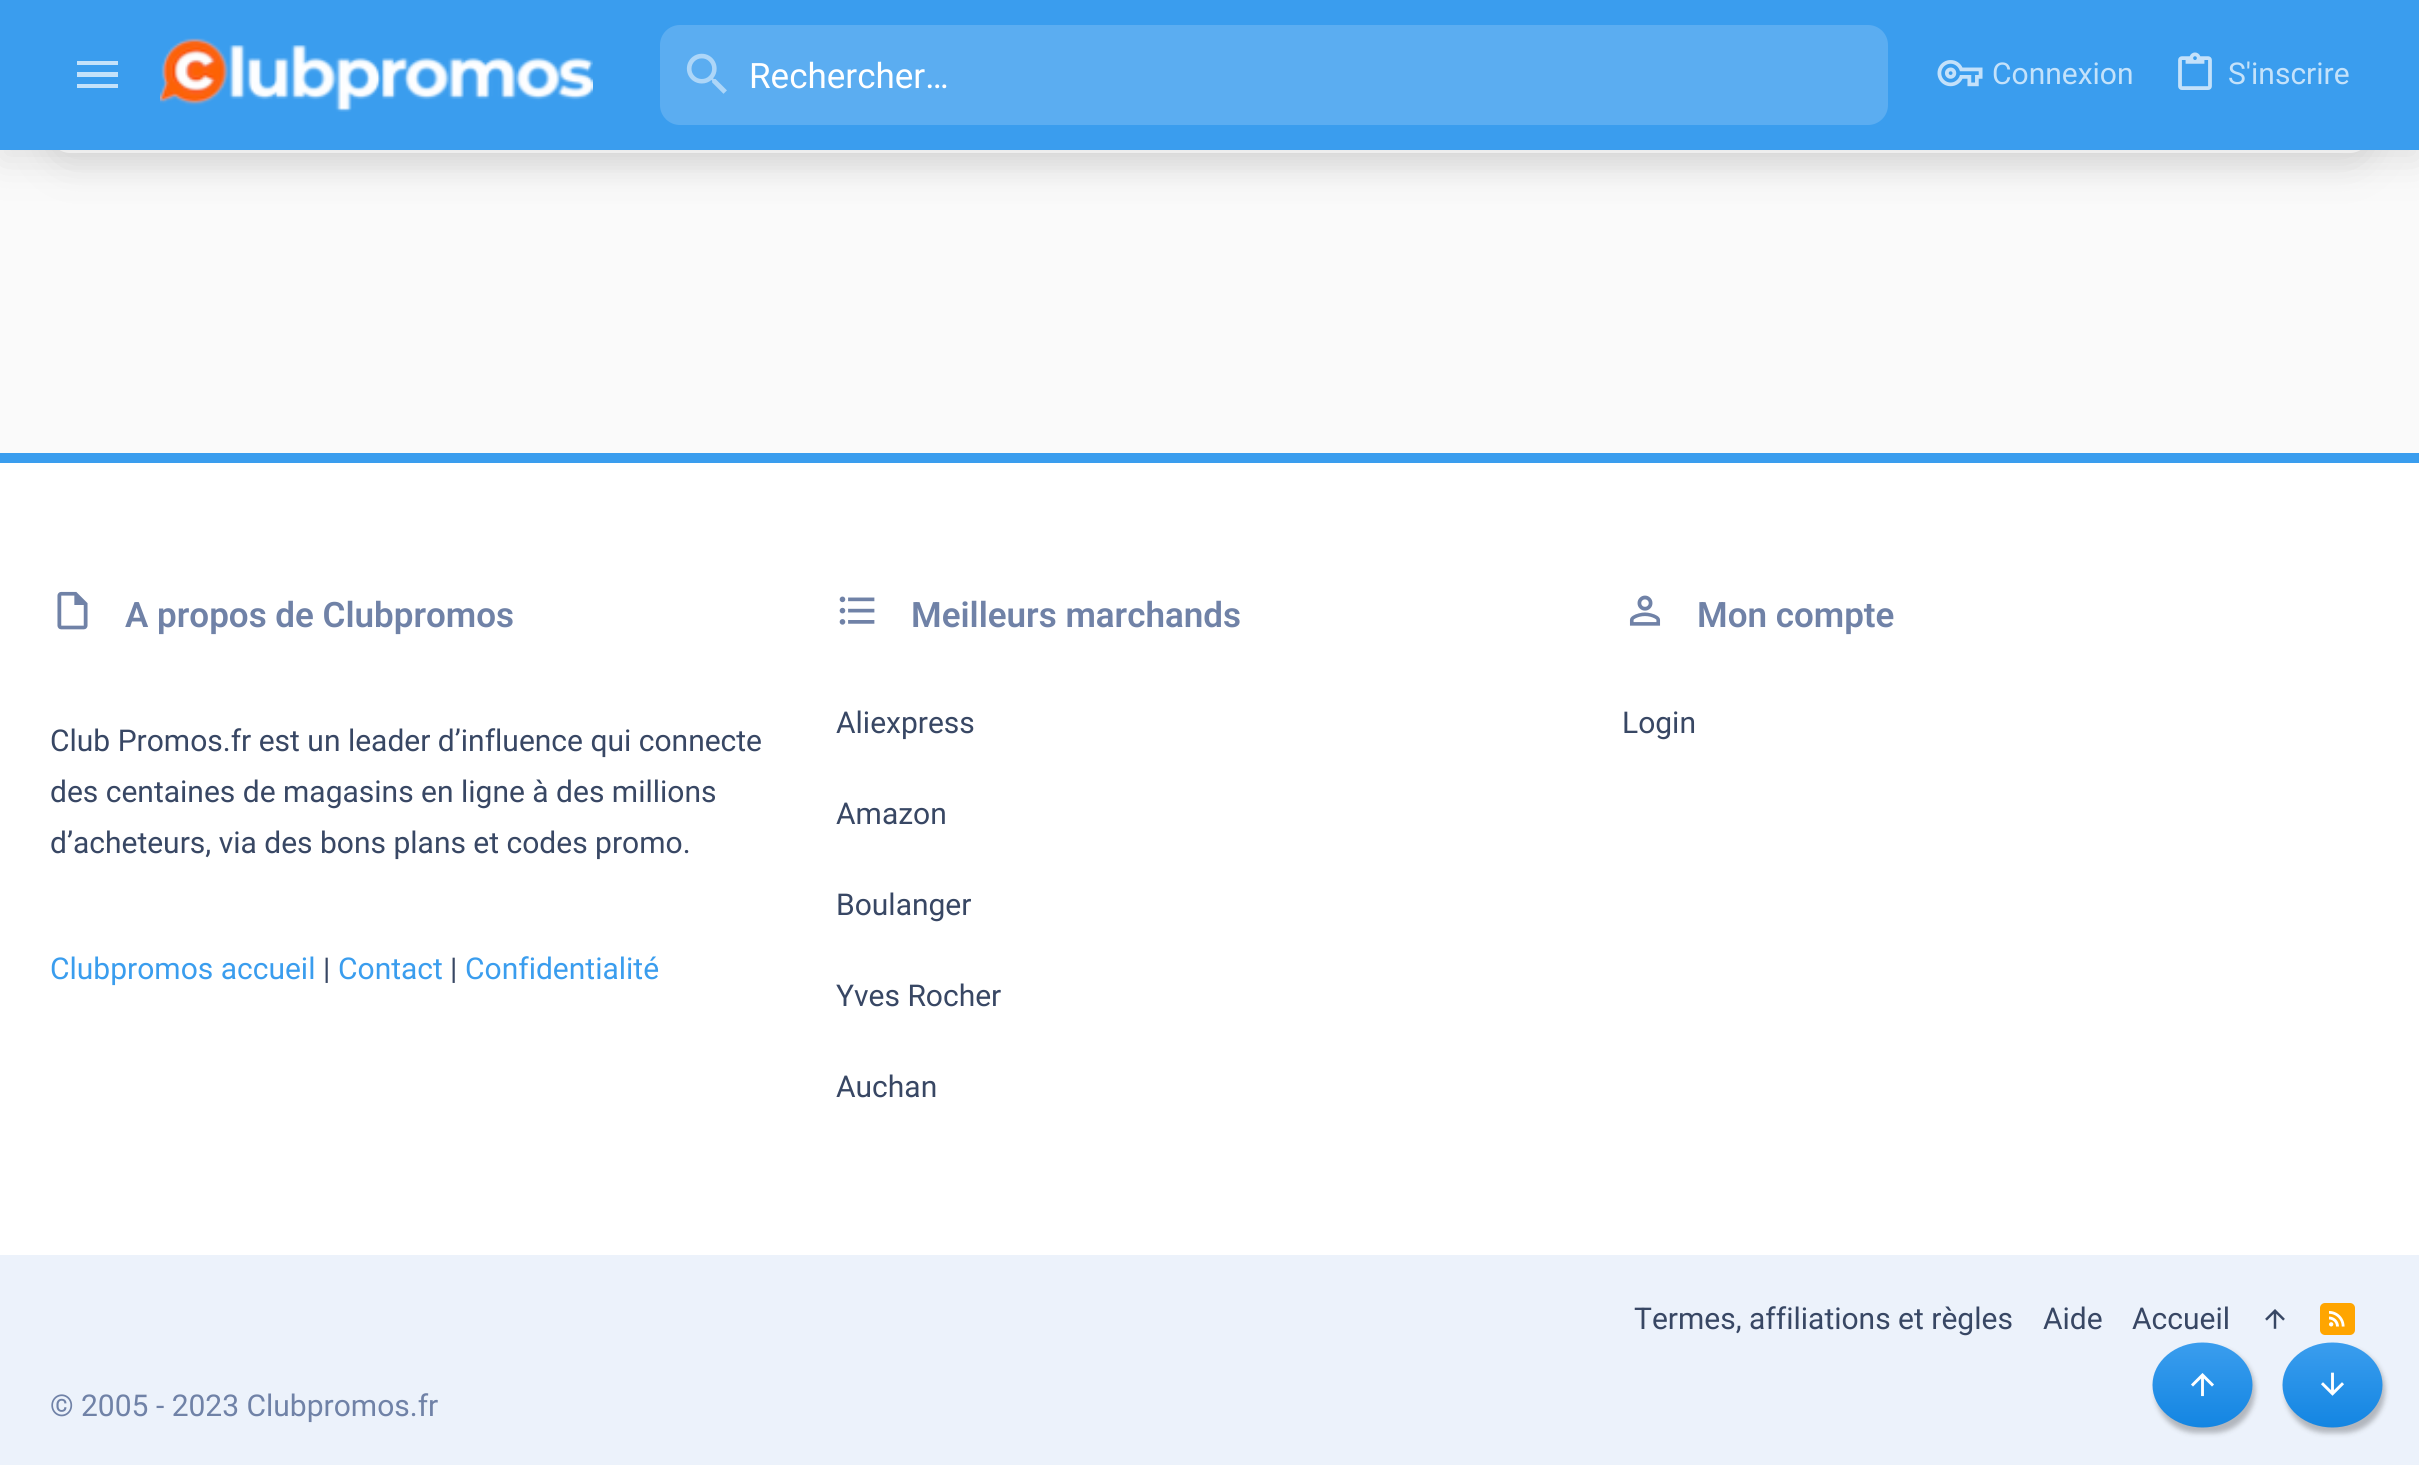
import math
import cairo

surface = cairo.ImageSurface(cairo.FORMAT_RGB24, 2419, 1465)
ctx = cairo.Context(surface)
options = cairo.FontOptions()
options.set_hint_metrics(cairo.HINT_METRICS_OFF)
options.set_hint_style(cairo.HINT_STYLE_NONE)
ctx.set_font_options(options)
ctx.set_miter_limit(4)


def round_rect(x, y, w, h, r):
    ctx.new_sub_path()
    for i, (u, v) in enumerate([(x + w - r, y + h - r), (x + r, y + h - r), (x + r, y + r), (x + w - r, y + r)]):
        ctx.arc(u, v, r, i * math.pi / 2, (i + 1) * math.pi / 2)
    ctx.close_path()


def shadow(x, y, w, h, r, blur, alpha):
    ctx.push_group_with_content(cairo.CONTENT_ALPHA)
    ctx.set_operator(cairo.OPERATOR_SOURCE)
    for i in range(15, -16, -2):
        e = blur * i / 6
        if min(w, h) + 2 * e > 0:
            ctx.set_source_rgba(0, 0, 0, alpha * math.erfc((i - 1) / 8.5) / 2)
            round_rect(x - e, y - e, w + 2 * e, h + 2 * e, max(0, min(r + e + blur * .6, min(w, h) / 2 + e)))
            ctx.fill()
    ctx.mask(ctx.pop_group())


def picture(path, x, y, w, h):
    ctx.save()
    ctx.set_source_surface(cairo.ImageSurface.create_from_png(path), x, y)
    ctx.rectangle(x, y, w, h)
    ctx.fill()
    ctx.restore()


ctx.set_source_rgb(0.98, 0.98, 0.98)
ctx.paint()
ctx.set_source_rgb(0.467, 0.467, 0.467)
shadow(50, -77, 2320, 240, 20, 19, 0.2)
ctx.set_source_rgb(1, 1, 1)
round_rect(50, -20, 2320, 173, 20)
ctx.fill()
ctx.set_source_rgb(0.467, 0.467, 0.467)
shadow(0, 10, 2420, 150, 0, 19, 0.2)
ctx.set_source_rgb(0.227, 0.616, 0.933)
ctx.rectangle(0, 0, 2419, 150)
ctx.fill()
ctx.set_source_rgb(0.769, 0.886, 0.98)
ctx.new_path()
ctx.move_to(77, 61)
ctx.line_to(118, 61)
ctx.line_to(118, 65)
ctx.line_to(77, 65)
ctx.close_path()
ctx.move_to(77, 72)
ctx.line_to(118, 72)
ctx.line_to(118, 77)
ctx.line_to(77, 77)
ctx.close_path()
ctx.move_to(77, 84)
ctx.line_to(118, 84)
ctx.line_to(118, 88)
ctx.line_to(77, 88)
ctx.close_path()
ctx.fill()
picture("img1.png", 160, 38, 433, 74)
ctx.set_source_rgb(0.357, 0.678, 0.945)
round_rect(660, 25, 1228, 100, 20)
ctx.fill()
picture("img2.png", 686, 53, 41, 41)
ctx.select_font_face("Roboto")
ctx.set_font_size(35)
ctx.set_source_rgb(1, 1, 1)
ctx.move_to(749, 88)
ctx.show_text("Rechercher…")
picture("img3.png", 1937, 60, 46, 27)
ctx.set_font_size(30)
ctx.set_source_rgb(0.769, 0.886, 0.98)
ctx.move_to(1992, 84)
ctx.show_text("Connexion")
picture("img4.png", 2178, 52, 34, 38)
ctx.move_to(2228, 84)
ctx.show_text("S'inscrire")
ctx.set_source_rgb(0.925, 0.949, 0.984)
ctx.rectangle(0, 1255, 2419, 210)
ctx.fill()
ctx.set_source_rgb(1, 1, 1)
ctx.rectangle(0, 463, 2419, 792)
ctx.fill()
ctx.set_source_rgb(0.227, 0.616, 0.933)
ctx.rectangle(0, 453, 2419, 10)
ctx.fill()
picture("img5.png", 57, 591, 31, 39)
ctx.select_font_face("Roboto SemiBold")
ctx.set_font_size(35)
ctx.set_source_rgb(0.439, 0.51, 0.655)
ctx.move_to(125, 627)
ctx.show_text("A propos de Clubpromos")
ctx.select_font_face("Roboto")
ctx.set_font_size(30)
ctx.set_source_rgb(0.22, 0.278, 0.392)
ctx.move_to(50, 751)
ctx.show_text("Club Promos.fr est un leader d’influence qui connecte")
ctx.move_to(50, 802)
ctx.show_text("des centaines de magasins en ligne à des millions")
ctx.move_to(50, 853)
ctx.show_text("d’acheteurs, via des bons plans et codes promo.")
ctx.set_source_rgb(0.227, 0.616, 0.933)
ctx.move_to(50, 979)
ctx.show_text("Clubpromos accueil")
ctx.set_source_rgb(0.22, 0.278, 0.392)
ctx.move_to(323, 979)
ctx.show_text("|")
ctx.set_source_rgb(0.227, 0.616, 0.933)
ctx.move_to(338, 979)
ctx.show_text("Contact")
ctx.set_source_rgb(0.22, 0.278, 0.392)
ctx.move_to(450, 979)
ctx.show_text("|")
ctx.set_source_rgb(0.227, 0.616, 0.933)
ctx.move_to(465, 979)
ctx.show_text("Confidentialité")
picture("img6.png", 839, 596, 36, 29)
ctx.select_font_face("Roboto SemiBold")
ctx.set_font_size(35)
ctx.set_source_rgb(0.439, 0.51, 0.655)
ctx.move_to(911, 627)
ctx.show_text("Meilleurs marchands")
ctx.select_font_face("Roboto")
ctx.set_font_size(30)
ctx.set_source_rgb(0.22, 0.278, 0.392)
ctx.move_to(836, 733)
ctx.show_text("Aliexpress")
ctx.move_to(836, 824)
ctx.show_text("Amazon")
ctx.move_to(836, 915)
ctx.show_text("Boulanger")
ctx.move_to(836, 1006)
ctx.show_text("Yves Rocher")
ctx.move_to(836, 1097)
ctx.show_text("Auchan")
picture("img7.png", 1629, 595, 32, 31)
ctx.select_font_face("Roboto SemiBold")
ctx.set_font_size(35)
ctx.set_source_rgb(0.439, 0.51, 0.655)
ctx.move_to(1697, 627)
ctx.show_text("Mon compte")
ctx.select_font_face("Roboto")
ctx.set_font_size(30)
ctx.set_source_rgb(0.22, 0.278, 0.392)
ctx.move_to(1622, 733)
ctx.show_text("Login")
ctx.move_to(1634, 1329)
ctx.show_text("Termes, affiliations et règles")
ctx.move_to(2043, 1329)
ctx.show_text("Aide")
ctx.move_to(2132, 1329)
ctx.show_text("Accueil")
picture("img8.png", 2265, 1309, 20, 20)
ctx.set_source_rgb(1, 0.647, 0)
round_rect(2320, 1303, 35, 32, 5)
ctx.fill()
picture("img9.png", 2329, 1311, 16, 16)
ctx.set_source_rgb(0.439, 0.51, 0.655)
ctx.move_to(50, 1416)
ctx.show_text("© 2005 - 2023 Clubpromos.fr")
ctx.set_source_rgb(0, 0, 0)
shadow(2155, 1348, 100, 85, 42.5, 2.5, 0.25)
gradient = cairo.LinearGradient(2203, 1343, 2203, 1428)
gradient.add_color_stop_rgba(0, 0.227, 0.616, 0.933, 1)
gradient.add_color_stop_rgba(1, 0.075, 0.522, 0.886, 1)
ctx.set_source(gradient)
ctx.new_path()
ctx.move_to(2202.5, 1342.5)
ctx.curve_to(2230, 1342.5, 2252.5, 1361.5, 2252.5, 1385)
ctx.curve_to(2252.5, 1408.5, 2230, 1427.5, 2202.5, 1427.5)
ctx.curve_to(2175, 1427.5, 2152.5, 1408.5, 2152.5, 1385)
ctx.curve_to(2152.5, 1361.5, 2175, 1342.5, 2202.5, 1342.5)
ctx.close_path()
ctx.fill()
picture("img10.png", 2191, 1373, 23, 24)
ctx.set_source_rgb(0, 0, 0)
shadow(2285, 1348, 100, 85, 42.5, 2.5, 0.25)
gradient = cairo.LinearGradient(2333, 1343, 2333, 1428)
gradient.add_color_stop_rgba(0, 0.227, 0.616, 0.933, 1)
gradient.add_color_stop_rgba(1, 0.075, 0.522, 0.886, 1)
ctx.set_source(gradient)
ctx.new_path()
ctx.move_to(2332.5, 1342.5)
ctx.curve_to(2360, 1342.5, 2382.5, 1361.5, 2382.5, 1385)
ctx.curve_to(2382.5, 1408.5, 2360, 1427.5, 2332.5, 1427.5)
ctx.curve_to(2305, 1427.5, 2282.5, 1408.5, 2282.5, 1385)
ctx.curve_to(2282.5, 1361.5, 2305, 1342.5, 2332.5, 1342.5)
ctx.close_path()
ctx.fill()
picture("img11.png", 2321, 1372, 23, 24)
surface.write_to_png("page.png")
